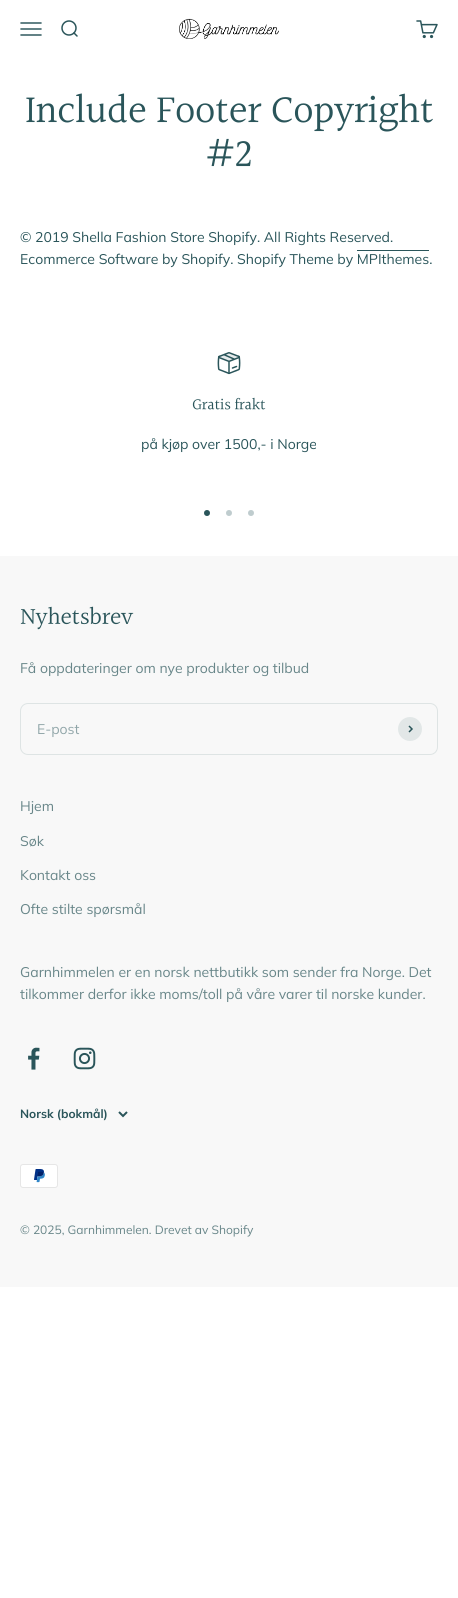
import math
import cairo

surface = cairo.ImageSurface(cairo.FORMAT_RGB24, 458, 1598)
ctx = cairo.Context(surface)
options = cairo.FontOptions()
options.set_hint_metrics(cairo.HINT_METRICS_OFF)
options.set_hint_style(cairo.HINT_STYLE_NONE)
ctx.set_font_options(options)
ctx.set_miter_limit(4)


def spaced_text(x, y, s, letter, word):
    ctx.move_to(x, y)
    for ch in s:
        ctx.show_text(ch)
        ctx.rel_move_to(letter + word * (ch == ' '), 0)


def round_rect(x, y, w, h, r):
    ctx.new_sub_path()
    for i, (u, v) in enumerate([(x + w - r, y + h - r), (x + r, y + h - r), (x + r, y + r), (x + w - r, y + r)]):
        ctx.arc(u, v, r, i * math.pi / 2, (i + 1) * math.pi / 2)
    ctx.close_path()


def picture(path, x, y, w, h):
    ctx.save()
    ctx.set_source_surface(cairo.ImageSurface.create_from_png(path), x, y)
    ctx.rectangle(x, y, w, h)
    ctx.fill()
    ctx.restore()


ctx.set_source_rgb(1, 1, 1)
ctx.paint()
picture("img1.png", 20, 22, 22, 14)
picture("img2.png", 61, 20, 17, 17)
picture("img3.png", 179, 18, 100, 21)
picture("img4.png", 416, 20, 22, 19)
ctx.select_font_face("Halant")
ctx.set_font_size(40)
ctx.set_source_rgb(0.165, 0.333, 0.353)
spaced_text(25, 124, "Include Footer Copyright", -0.4, 0)
spaced_text(205, 168, "#2", -0.4, 0)
ctx.select_font_face("Muli")
ctx.set_font_size(14)
ctx.move_to(20, 242)
ctx.show_text("© 2019 Shella Fashion Store Shopify. All Rights Reserved.")
ctx.rectangle(357, 250, 72, 1)
ctx.fill()
ctx.move_to(20, 264)
ctx.show_text("Ecommerce Software by Shopify. Shopify Theme by MPIthemes.")
picture("img5.png", 217, 352, 24, 23)
ctx.select_font_face("Halant")
ctx.set_font_size(16)
spaced_text(192, 410, "Gratis frakt", -0.2, 0)
ctx.select_font_face("Muli")
ctx.set_font_size(14)
ctx.move_to(141, 449)
ctx.show_text("på kjøp over 1500,- i Norge")
ctx.new_path()
ctx.arc(207, 513, 3, 0, 2 * math.pi)
ctx.fill()
ctx.set_source_rgb(0.749, 0.8, 0.808)
ctx.arc(229, 513, 3, 0, 2 * math.pi)
ctx.fill()
ctx.arc(251, 513, 3, 0, 2 * math.pi)
ctx.fill()
ctx.set_source_rgb(0.969, 0.969, 0.969)
ctx.rectangle(0, 556, 458, 731)
ctx.fill()
ctx.select_font_face("Halant")
ctx.set_font_size(24)
ctx.set_source_rgb(0.165, 0.333, 0.353)
spaced_text(20, 625, "Nyhetsbrev", -0.25, 0)
ctx.select_font_face("Muli")
ctx.set_font_size(14)
ctx.set_source_rgb(0.408, 0.525, 0.537)
ctx.move_to(20, 673)
ctx.show_text("Få oppdateringer om nye produkter og tilbud")
round_rect(20.5, 703.5, 417, 51, 7.5)
ctx.set_source_rgb(0.871, 0.894, 0.894)
ctx.set_line_width(1)
ctx.stroke()
ctx.set_source_rgb(0.569, 0.651, 0.663)
ctx.move_to(37, 734)
ctx.show_text("E-post")
ctx.set_source_rgb(0.886, 0.906, 0.906)
ctx.new_path()
ctx.arc(410, 729, 12, 0, 2 * math.pi)
ctx.fill()
ctx.new_path()
ctx.move_to(409, 732)
ctx.line_to(412, 729)
ctx.line_to(409, 726)
ctx.set_source_rgb(0.165, 0.333, 0.353)
ctx.set_line_width(1.5)
ctx.stroke()
ctx.set_source_rgb(0.408, 0.525, 0.537)
ctx.move_to(20, 811)
ctx.show_text("Hjem")
ctx.move_to(20, 846)
ctx.show_text("Søk")
ctx.move_to(20, 880)
ctx.show_text("Kontakt oss")
ctx.move_to(20, 914)
ctx.show_text("Ofte stilte spørsmål")
ctx.move_to(20, 977)
ctx.show_text("Garnhimmelen er en norsk nettbutikk som sender fra Norge. Det")
ctx.move_to(20, 999)
ctx.show_text("tilkommer derfor ikke moms/toll på våre varer til norske kunder.")
picture("img6.png", 28, 1047, 12, 23)
picture("img7.png", 73, 1047, 23, 23)
ctx.select_font_face("Muli", cairo.FONT_SLANT_NORMAL, cairo.FONT_WEIGHT_BOLD)
ctx.set_font_size(12)
ctx.set_source_rgb(0.165, 0.333, 0.353)
ctx.move_to(20, 1118)
ctx.show_text("Norsk (bokmål)")
ctx.new_path()
ctx.move_to(119, 1112)
ctx.line_to(123, 1116)
ctx.line_to(127, 1112)
ctx.set_line_width(2)
ctx.stroke()
picture("img8.png", 20, 1164, 38, 24)
ctx.select_font_face("Muli")
ctx.set_source_rgb(0.408, 0.525, 0.537)
ctx.move_to(20, 1234)
ctx.show_text("© 2025, Garnhimmelen. Drevet av Shopify")
surface.write_to_png("page.png")
